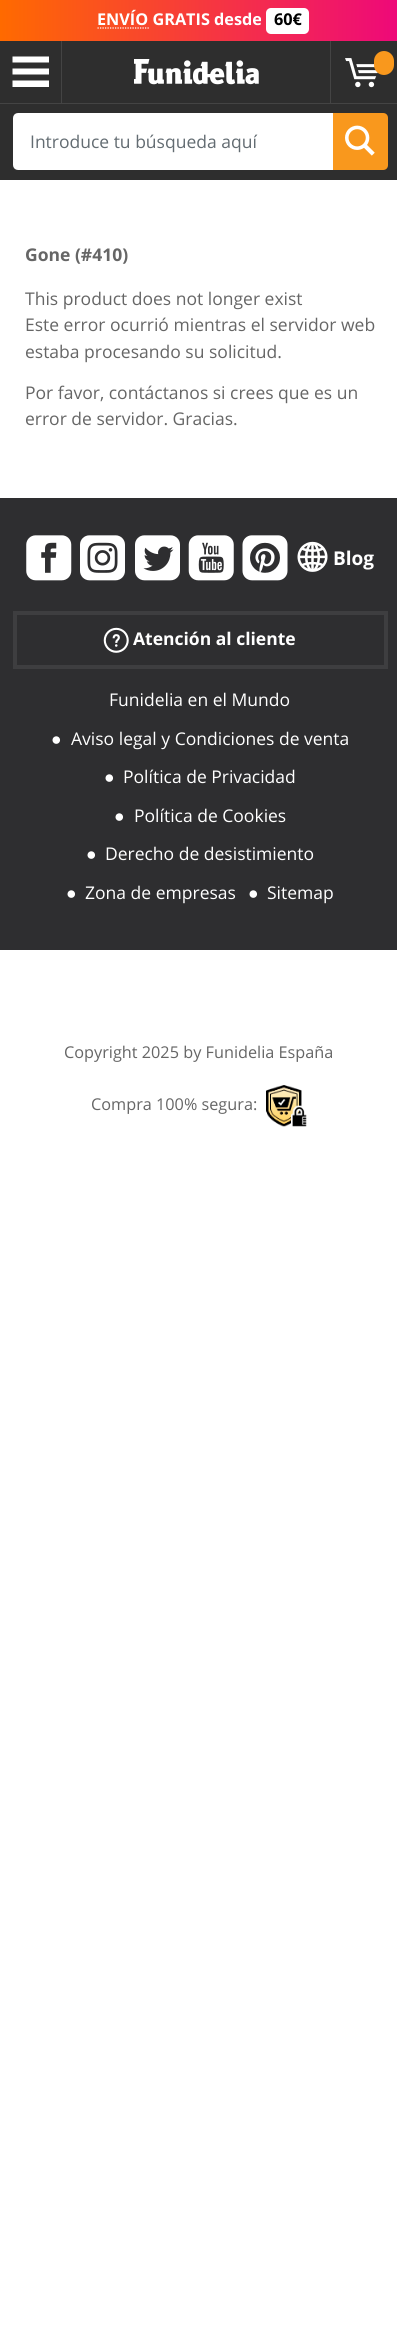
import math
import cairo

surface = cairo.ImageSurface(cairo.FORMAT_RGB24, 397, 2351)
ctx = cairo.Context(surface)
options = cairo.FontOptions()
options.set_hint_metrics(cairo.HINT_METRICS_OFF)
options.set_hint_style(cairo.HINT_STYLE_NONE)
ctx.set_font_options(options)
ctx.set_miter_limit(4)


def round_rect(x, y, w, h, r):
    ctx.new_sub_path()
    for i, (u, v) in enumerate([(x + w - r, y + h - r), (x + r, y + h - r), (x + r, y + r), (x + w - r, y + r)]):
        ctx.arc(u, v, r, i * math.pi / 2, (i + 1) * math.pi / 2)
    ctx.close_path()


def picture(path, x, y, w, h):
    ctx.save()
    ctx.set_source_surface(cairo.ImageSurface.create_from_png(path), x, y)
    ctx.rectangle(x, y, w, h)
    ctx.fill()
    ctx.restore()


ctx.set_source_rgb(1, 1, 1)
ctx.paint()
ctx.set_source_rgb(0.18, 0.18, 0.18)
ctx.rectangle(0, 41, 397, 139)
ctx.fill()
gradient = cairo.LinearGradient(0, 21, 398, 21)
gradient.add_color_stop_rgba(0, 1, 0.416, 0, 1)
gradient.add_color_stop_rgba(1, 0.933, 0.035, 0.475, 1)
ctx.set_source(gradient)
ctx.rectangle(0, 0, 397, 41)
ctx.fill()
ctx.new_path()
ctx.move_to(97.5, 28)
ctx.line_to(149, 28)
ctx.set_source_rgb(1, 1, 1)
ctx.set_line_width(1.2)
ctx.set_dash([1.25, 1.25])
ctx.stroke()
ctx.select_font_face("Open Sans", cairo.FONT_SLANT_NORMAL, cairo.FONT_WEIGHT_BOLD)
ctx.set_font_size(16.25)
ctx.move_to(97, 25)
ctx.show_text("ENVÍO GRATIS desde")
round_rect(266, 8, 43, 26, 5)
ctx.fill()
ctx.set_source_rgb(0, 0, 0)
ctx.move_to(274, 25)
ctx.show_text("60€")
ctx.set_source_rgb(0.267, 0.267, 0.267)
ctx.rectangle(61, 41, 1, 62)
ctx.fill()
ctx.set_source_rgb(1, 1, 1)
ctx.new_path()
ctx.move_to(49, 62.5)
ctx.line_to(12.5, 62.5)
ctx.line_to(12.5, 56.5)
ctx.line_to(49, 56.5)
ctx.close_path()
ctx.move_to(49, 68.5)
ctx.line_to(12.5, 68.5)
ctx.line_to(12.5, 74.5)
ctx.line_to(49, 74.5)
ctx.close_path()
ctx.move_to(49, 80.5)
ctx.line_to(12.5, 80.5)
ctx.line_to(12.5, 87)
ctx.line_to(49, 87)
ctx.close_path()
ctx.fill()
picture("img1.png", 134, 59, 125, 26)
ctx.set_source_rgb(0.267, 0.267, 0.267)
ctx.rectangle(330, 41, 1, 62)
ctx.fill()
picture("img2.png", 345, 58, 33, 30)
ctx.set_source_rgb(0.973, 0.596, 0.114)
round_rect(374, 51, 20, 24, 10)
ctx.fill()
ctx.set_source_rgb(0.267, 0.267, 0.267)
ctx.rectangle(0, 103, 397, 1)
ctx.fill()
ctx.set_source_rgb(1, 1, 1)
ctx.new_path()
ctx.move_to(18, 114.5)
ctx.line_to(331.5, 114.5)
ctx.line_to(331.5, 168.5)
ctx.line_to(18, 168.5)
ctx.curve_to(16, 168.5, 14.5, 167, 14.5, 165)
ctx.line_to(14.5, 118)
ctx.curve_to(14.5, 116, 16, 114.5, 18, 114.5)
ctx.close_path()
ctx.fill_preserve()
ctx.set_line_width(3)
ctx.set_dash([])
ctx.stroke()
ctx.select_font_face("Open Sans")
ctx.set_font_size(17.5)
ctx.set_source_rgb(0.388, 0.424, 0.447)
ctx.move_to(30, 148)
ctx.show_text("Introduce tu búsqueda aquí")
ctx.set_source_rgb(0.973, 0.596, 0.114)
ctx.new_path()
ctx.move_to(333, 113)
ctx.line_to(383, 113)
ctx.curve_to(386, 113, 388, 115, 388, 118)
ctx.line_to(388, 165)
ctx.curve_to(388, 168, 386, 170, 383, 170)
ctx.line_to(333, 170)
ctx.close_path()
ctx.fill()
picture("img3.png", 345, 125, 30, 31)
ctx.select_font_face("Open Sans", cairo.FONT_SLANT_NORMAL, cairo.FONT_WEIGHT_BOLD)
ctx.set_source_rgb(0.4, 0.4, 0.4)
ctx.move_to(25, 261)
ctx.show_text("Gone (#410)")
ctx.select_font_face("Open Sans")
ctx.move_to(25, 305)
ctx.show_text("This product does not longer exist")
ctx.move_to(25, 331)
ctx.show_text("Este error ocurrió mientras el servidor web")
ctx.move_to(25, 358)
ctx.show_text("estaba procesando su solicitud.")
ctx.move_to(25, 399)
ctx.show_text("Por favor, contáctanos si crees que es un")
ctx.move_to(25, 425)
ctx.show_text("error de servidor. Gracias.")
ctx.set_source_rgb(0.18, 0.18, 0.188)
ctx.rectangle(0, 498, 397, 452)
ctx.fill()
picture("img4.png", 26, 535, 46, 46)
picture("img5.png", 80, 535, 45, 46)
picture("img6.png", 135, 535, 45, 46)
picture("img7.png", 188, 535, 46, 46)
picture("img8.png", 242, 535, 46, 46)
picture("img9.png", 297, 541, 31, 31)
ctx.select_font_face("Open Sans", cairo.FONT_SLANT_NORMAL, cairo.FONT_WEIGHT_BOLD)
ctx.set_font_size(19)
ctx.set_source_rgb(1, 1, 1)
ctx.move_to(333, 565)
ctx.show_text("Blog")
ctx.rectangle(15, 613, 371, 54)
ctx.set_source_rgb(0.243, 0.243, 0.251)
ctx.set_line_width(4)
ctx.stroke()
picture("img10.png", 103, 627, 26, 26)
ctx.set_font_size(17.5)
ctx.set_source_rgb(1, 1, 1)
ctx.move_to(133, 645)
ctx.show_text("Atención al cliente")
ctx.select_font_face("Open Sans")
ctx.move_to(109, 706)
ctx.show_text("Funidelia en el Mundo")
ctx.select_font_face("Liberation Sans", cairo.FONT_SLANT_NORMAL, cairo.FONT_WEIGHT_BOLD)
ctx.move_to(51, 745)
ctx.show_text("●")
ctx.select_font_face("Open Sans")
ctx.move_to(71, 745)
ctx.show_text("Aviso legal y Condiciones de venta")
ctx.select_font_face("Liberation Sans", cairo.FONT_SLANT_NORMAL, cairo.FONT_WEIGHT_BOLD)
ctx.move_to(104, 783)
ctx.show_text("●")
ctx.select_font_face("Open Sans")
ctx.move_to(123, 783)
ctx.show_text("Política de Privacidad")
ctx.select_font_face("Liberation Sans", cairo.FONT_SLANT_NORMAL, cairo.FONT_WEIGHT_BOLD)
ctx.move_to(114, 822)
ctx.show_text("●")
ctx.select_font_face("Open Sans")
ctx.move_to(134, 822)
ctx.show_text("Política de Cookies")
ctx.select_font_face("Liberation Sans", cairo.FONT_SLANT_NORMAL, cairo.FONT_WEIGHT_BOLD)
ctx.move_to(86, 860)
ctx.show_text("●")
ctx.select_font_face("Open Sans")
ctx.move_to(105, 860)
ctx.show_text("Derecho de desistimiento")
ctx.select_font_face("Liberation Sans", cairo.FONT_SLANT_NORMAL, cairo.FONT_WEIGHT_BOLD)
ctx.move_to(66, 899)
ctx.show_text("●")
ctx.select_font_face("Open Sans")
ctx.move_to(85, 899)
ctx.show_text("Zona de empresas")
ctx.select_font_face("Liberation Sans", cairo.FONT_SLANT_NORMAL, cairo.FONT_WEIGHT_BOLD)
ctx.move_to(248, 899)
ctx.show_text("●")
ctx.select_font_face("Open Sans")
ctx.move_to(267, 899)
ctx.show_text("Sitemap")
ctx.set_font_size(16.25)
ctx.set_source_rgb(0.4, 0.4, 0.4)
ctx.move_to(64, 1058)
ctx.show_text("Copyright 2025 by Funidelia España")
ctx.move_to(91, 1110)
ctx.show_text("Compra 100% segura:")
picture("img11.png", 266, 1085, 41, 42)
surface.write_to_png("page.png")
